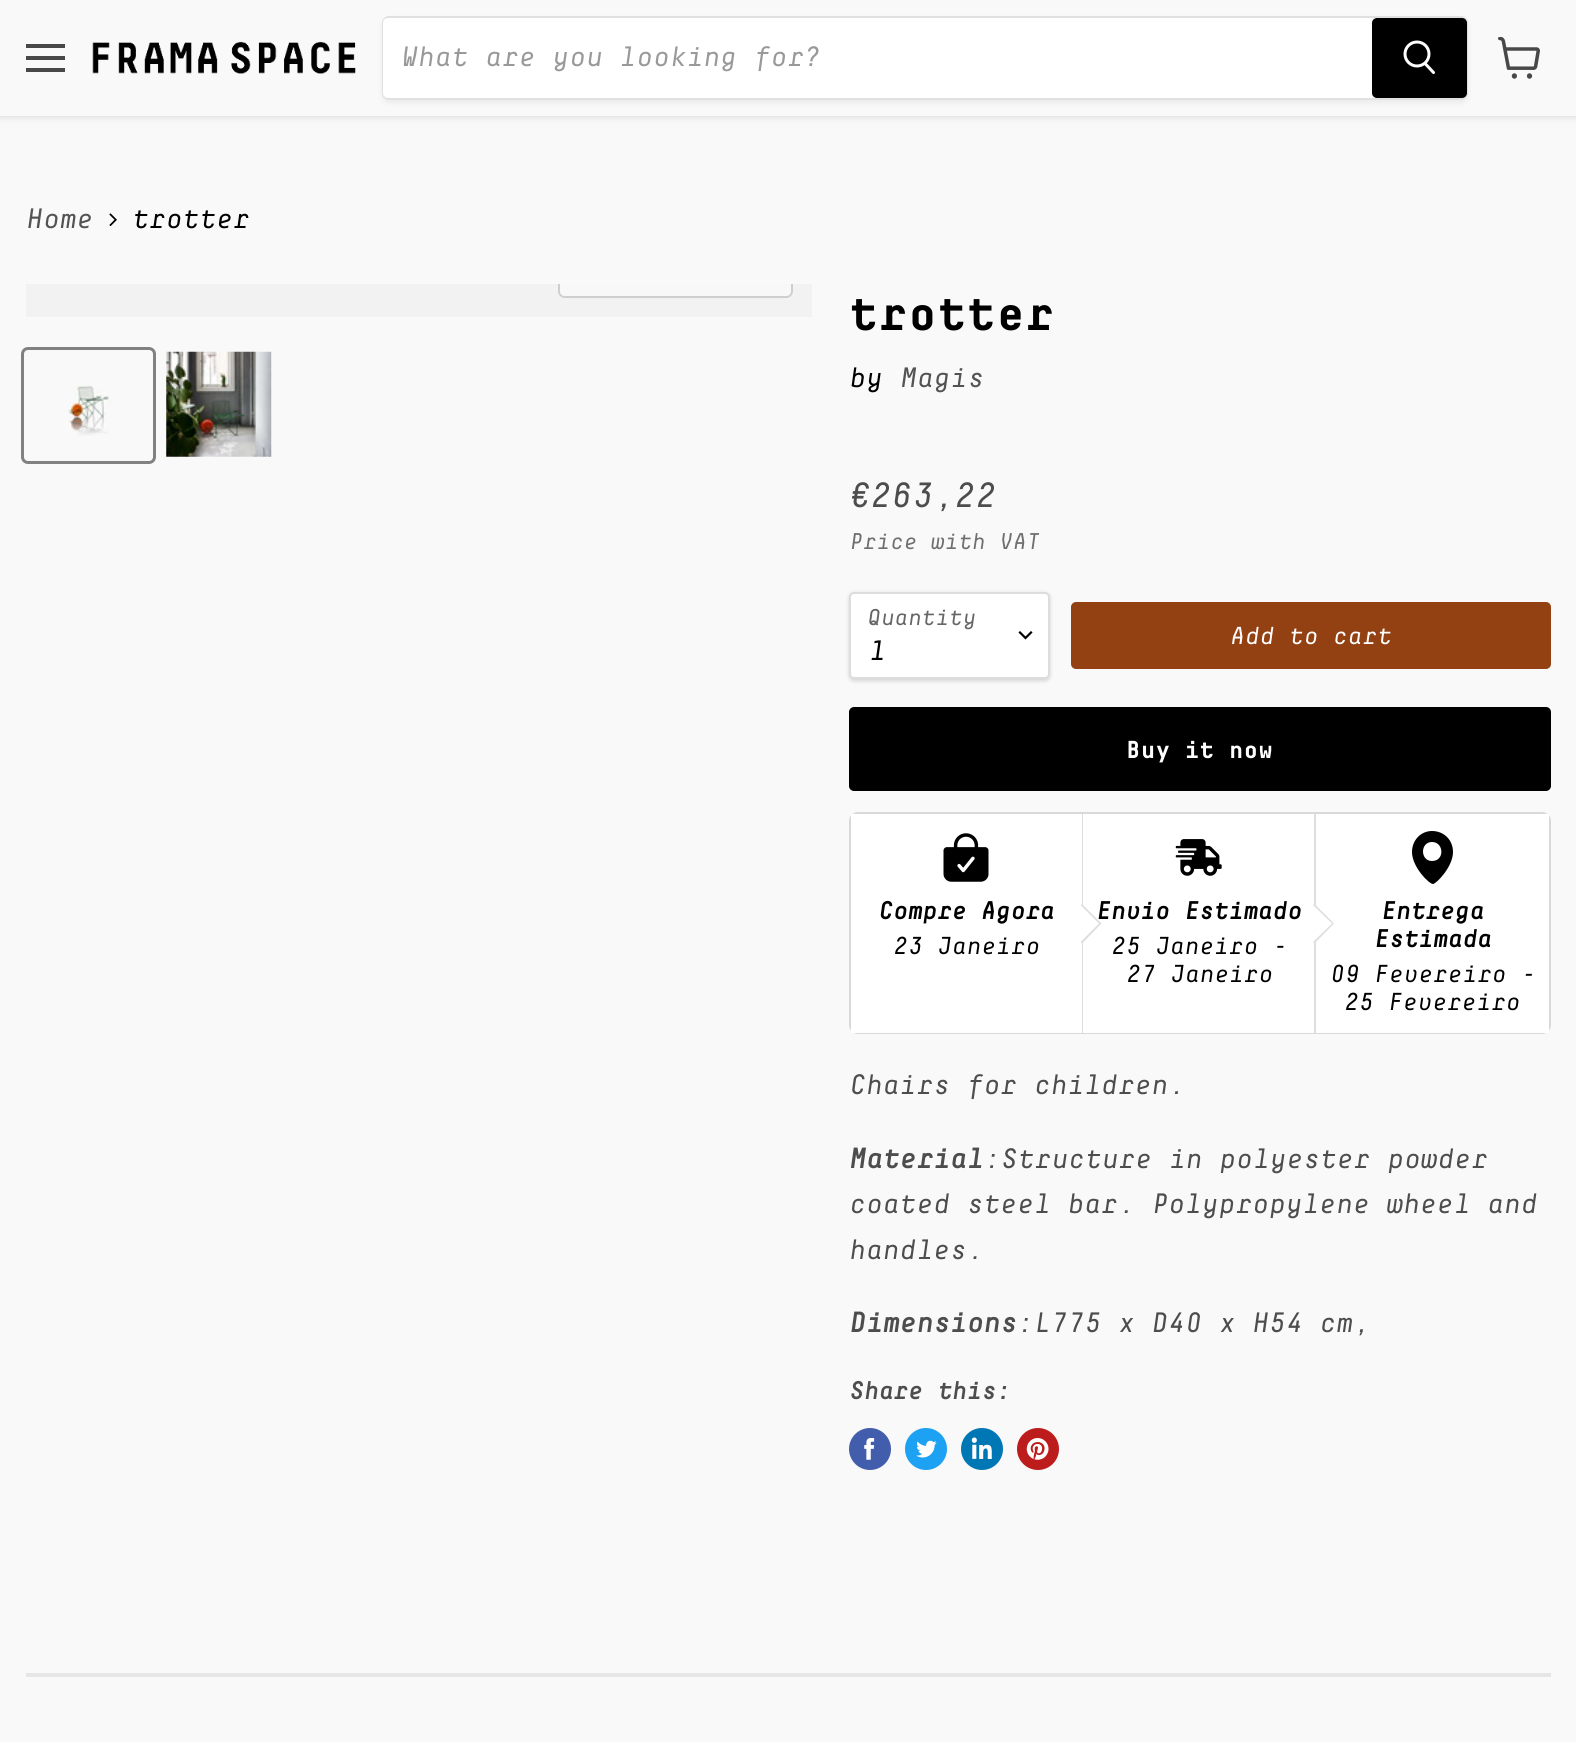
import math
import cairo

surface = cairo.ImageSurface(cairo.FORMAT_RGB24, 1576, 1742)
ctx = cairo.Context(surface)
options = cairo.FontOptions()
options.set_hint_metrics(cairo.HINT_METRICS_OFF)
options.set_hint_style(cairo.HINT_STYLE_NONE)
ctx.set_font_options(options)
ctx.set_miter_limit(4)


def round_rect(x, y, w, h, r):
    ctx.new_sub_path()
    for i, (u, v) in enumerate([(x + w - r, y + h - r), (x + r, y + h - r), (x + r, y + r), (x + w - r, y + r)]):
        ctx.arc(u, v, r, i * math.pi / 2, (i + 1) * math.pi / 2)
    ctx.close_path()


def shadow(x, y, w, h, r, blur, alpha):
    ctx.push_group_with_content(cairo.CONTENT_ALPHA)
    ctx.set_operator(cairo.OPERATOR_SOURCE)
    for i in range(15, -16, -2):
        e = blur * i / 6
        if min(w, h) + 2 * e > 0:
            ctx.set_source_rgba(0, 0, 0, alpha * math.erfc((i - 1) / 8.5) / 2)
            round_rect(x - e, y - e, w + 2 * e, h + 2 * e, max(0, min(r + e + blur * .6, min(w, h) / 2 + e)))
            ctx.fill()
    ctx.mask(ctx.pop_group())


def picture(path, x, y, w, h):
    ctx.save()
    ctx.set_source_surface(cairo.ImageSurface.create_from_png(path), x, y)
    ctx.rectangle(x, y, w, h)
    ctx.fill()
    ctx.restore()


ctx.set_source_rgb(0.976, 0.976, 0.976)
ctx.paint()
ctx.set_source_rgb(0.49, 0.49, 0.49)
shadow(0, 2, 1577, 115, 0, 3.5, 0.25)
ctx.set_source_rgb(0.976, 0.976, 0.976)
ctx.rectangle(0, 0, 1576, 116)
ctx.fill()
ctx.set_source_rgb(0.282, 0.282, 0.282)
ctx.rectangle(26, 44, 39, 4)
ctx.fill()
ctx.rectangle(26, 56, 39, 4)
ctx.fill()
ctx.rectangle(26, 68, 39, 4)
ctx.fill()
picture("img1.png", 92, 41, 264, 33)
ctx.save()
ctx.set_fill_rule(cairo.FILL_RULE_EVEN_ODD)
ctx.new_path()
ctx.move_to(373, 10)
ctx.line_to(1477, 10)
ctx.line_to(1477, 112)
ctx.line_to(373, 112)
ctx.close_path()
ctx.move_to(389, 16)
ctx.line_to(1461, 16)
ctx.curve_to(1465, 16, 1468, 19, 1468, 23)
ctx.line_to(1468, 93)
ctx.curve_to(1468, 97, 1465, 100, 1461, 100)
ctx.line_to(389, 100)
ctx.curve_to(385, 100, 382, 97, 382, 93)
ctx.line_to(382, 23)
ctx.curve_to(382, 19, 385, 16, 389, 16)
ctx.close_path()
ctx.clip()
ctx.set_source_rgb(0.49, 0.49, 0.49)
shadow(382, 19, 1086, 84, 7, 2.5, 0.11)
ctx.restore()
round_rect(383, 17, 1084, 82, 6)
ctx.set_source_rgba(0.49, 0.49, 0.49, 0.2)
ctx.stroke()
ctx.set_source_rgb(1, 1, 1)
ctx.new_path()
ctx.move_to(388, 18)
ctx.line_to(1372, 18)
ctx.line_to(1372, 98)
ctx.line_to(388, 98)
ctx.curve_to(385, 98, 383, 96, 383, 93)
ctx.line_to(383, 23)
ctx.curve_to(383, 20, 385, 18, 388, 18)
ctx.close_path()
ctx.fill()
ctx.select_font_face("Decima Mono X", cairo.FONT_SLANT_ITALIC)
ctx.set_font_size(28)
ctx.set_source_rgb(0.6, 0.6, 0.6)
ctx.move_to(401, 66)
ctx.show_text("What are you looking for?")
ctx.set_source_rgb(0, 0, 0)
round_rect(1373, 19, 93, 78, 4)
ctx.fill_preserve()
ctx.stroke()
ctx.new_path()
ctx.move_to(1433.5, 72.5)
ctx.line_to(1425.5, 64)
ctx.set_source_rgb(1, 1, 1)
ctx.set_line_width(3)
ctx.set_line_cap(cairo.LINE_CAP_ROUND)
ctx.stroke()
ctx.arc(1417, 54, 12, 0, 2 * math.pi)
ctx.set_line_cap(cairo.LINE_CAP_BUTT)
ctx.stroke()
picture("img2.png", 1498, 37, 42, 42)
ctx.set_source_rgb(0.325, 0.325, 0.325)
ctx.move_to(26, 228)
ctx.show_text("Home")
picture("img3.png", 109, 213, 8, 13)
ctx.set_source_rgb(0, 0, 0)
ctx.move_to(132, 228)
ctx.show_text("trotter")
ctx.set_source_rgb(0.949, 0.949, 0.949)
ctx.rectangle(26, 284, 786, 33)
ctx.fill()
ctx.save()
ctx.rectangle(26, 284, 786, 33)
ctx.clip()
round_rect(559, 246, 233, 51, 6)
ctx.set_source_rgb(0.808, 0.808, 0.808)
ctx.set_line_width(2)
ctx.stroke()
ctx.restore()
ctx.set_source_rgba(0.976, 0.976, 0.976, 0.9)
ctx.new_path()
ctx.move_to(560, 284)
ctx.line_to(791, 284)
ctx.line_to(791, 291)
ctx.curve_to(791, 294, 789, 296, 786, 296)
ctx.line_to(565, 296)
ctx.curve_to(562, 296, 560, 294, 560, 291)
ctx.close_path()
ctx.fill()
round_rect(22.5, 348.5, 132, 114, 5.5)
ctx.set_source_rgb(0.506, 0.506, 0.506)
ctx.stroke()
picture("img4.png", 66, 385, 50, 51)
picture("img5.png", 166, 351, 106, 106)
ctx.select_font_face("Decima Mono X", cairo.FONT_SLANT_NORMAL, cairo.FONT_WEIGHT_BOLD)
ctx.set_font_size(49)
ctx.set_source_rgb(0, 0, 0)
ctx.move_to(849, 330)
ctx.show_text("trotter")
ctx.select_font_face("Decima Mono X", cairo.FONT_SLANT_ITALIC)
ctx.set_font_size(28)
ctx.move_to(849, 387)
ctx.show_text("by")
ctx.set_source_rgb(0.325, 0.325, 0.325)
ctx.move_to(900, 387)
ctx.show_text("Magis")
ctx.set_font_size(35)
ctx.set_source_rgb(0.302, 0.302, 0.302)
ctx.move_to(849, 507)
ctx.show_text("€263,22")
ctx.set_font_size(22.75)
ctx.set_source_rgb(0.435, 0.435, 0.435)
ctx.move_to(849, 549)
ctx.show_text("Price with VAT")
ctx.set_source_rgb(0, 0, 0)
shadow(849, 593, 201, 88, 5, 2, 0.15)
ctx.set_source_rgb(1, 1, 1)
round_rect(850, 593, 199, 85, 4)
ctx.fill_preserve()
ctx.set_source_rgb(0.867, 0.867, 0.867)
ctx.set_line_width(2)
ctx.stroke()
ctx.set_source_rgb(0.4, 0.4, 0.4)
ctx.move_to(867, 625)
ctx.show_text("Quantity")
ctx.new_path()
ctx.move_to(1025.5, 638)
ctx.line_to(1031, 632.5)
ctx.move_to(1025.5, 638)
ctx.line_to(1020, 632.5)
ctx.set_source_rgb(0, 0, 0)
ctx.set_line_width(2.2)
ctx.set_line_cap(cairo.LINE_CAP_SQUARE)
ctx.stroke()
ctx.set_font_size(28)
ctx.move_to(869, 660)
ctx.show_text("1")
ctx.set_source_rgb(0.576, 0.255, 0.075)
round_rect(1072, 603, 478, 65, 4)
ctx.fill_preserve()
ctx.set_line_width(2)
ctx.set_line_cap(cairo.LINE_CAP_BUTT)
ctx.stroke()
ctx.set_font_size(24.5)
ctx.set_source_rgb(1, 1, 1)
ctx.move_to(1230, 644)
ctx.show_text("Add to cart")
ctx.set_source_rgb(0, 0, 0)
round_rect(850, 708, 700, 82, 4)
ctx.fill_preserve()
ctx.stroke()
ctx.select_font_face("Decima Mono X", cairo.FONT_SLANT_NORMAL, cairo.FONT_WEIGHT_BOLD)
ctx.set_source_rgb(1, 1, 1)
ctx.move_to(1126, 758)
ctx.show_text("Buy it now")
round_rect(850, 813, 700, 220, 8)
ctx.set_source_rgb(0.851, 0.851, 0.851)
ctx.stroke()
ctx.set_source_rgb(1, 1, 1)
ctx.rectangle(851, 814, 463, 219)
ctx.fill()
ctx.set_source_rgba(0.133, 0.141, 0.149, 0.15)
ctx.rectangle(1082, 814, 1, 219)
ctx.fill()
picture("img6.png", 943, 833, 46, 49)
ctx.select_font_face("Decima Mono X", cairo.FONT_SLANT_ITALIC, cairo.FONT_WEIGHT_BOLD)
ctx.set_source_rgb(0, 0, 0)
ctx.move_to(878, 919)
ctx.show_text("Compre Agora")
ctx.select_font_face("Decima Mono X", cairo.FONT_SLANT_ITALIC)
ctx.move_to(893, 954)
ctx.show_text("23 Janeiro")
ctx.select_font_face("Decima Mono X", cairo.FONT_SLANT_ITALIC, cairo.FONT_WEIGHT_BOLD)
ctx.move_to(1096, 919)
ctx.show_text("Envio Estimado")
ctx.set_source_rgb(1, 1, 1)
ctx.new_path()
ctx.move_to(1062, 923.5)
ctx.line_to(1082, 904)
ctx.line_to(1101.5, 923.5)
ctx.line_to(1082, 943.5)
ctx.close_path()
ctx.fill()
ctx.set_source_rgba(0.133, 0.141, 0.149, 0.15)
ctx.new_path()
ctx.move_to(1082, 904)
ctx.line_to(1101.5, 923.5)
ctx.line_to(1099, 923.5)
ctx.line_to(1080.5, 905)
ctx.close_path()
ctx.fill()
ctx.new_path()
ctx.move_to(1101.5, 923.5)
ctx.line_to(1082, 943.5)
ctx.line_to(1080.5, 942)
ctx.line_to(1099, 923.5)
ctx.close_path()
ctx.fill()
ctx.set_source_rgb(0.871, 0.871, 0.871)
ctx.rectangle(1314, 814, 2, 219)
ctx.fill()
picture("img7.png", 1175, 839, 47, 37)
ctx.select_font_face("Decima Mono X", cairo.FONT_SLANT_ITALIC)
ctx.set_source_rgb(0, 0, 0)
ctx.move_to(1111, 954)
ctx.show_text("25 Janeiro -")
ctx.move_to(1126, 982)
ctx.show_text("27 Janeiro")
ctx.set_source_rgb(1, 1, 1)
ctx.rectangle(1316, 814, 233, 219)
ctx.fill()
ctx.new_path()
ctx.move_to(1294.5, 923.5)
ctx.line_to(1314.5, 904)
ctx.line_to(1334, 923.5)
ctx.line_to(1314.5, 943.5)
ctx.close_path()
ctx.fill()
ctx.set_source_rgba(0.133, 0.141, 0.149, 0.15)
ctx.new_path()
ctx.move_to(1314.5, 904)
ctx.line_to(1334, 923.5)
ctx.line_to(1332, 923.5)
ctx.line_to(1313, 905)
ctx.close_path()
ctx.fill()
ctx.set_source_rgb(0.871, 0.871, 0.871)
ctx.new_path()
ctx.move_to(1334, 923.5)
ctx.line_to(1314.5, 943.5)
ctx.line_to(1313, 942)
ctx.line_to(1332, 923.5)
ctx.close_path()
ctx.fill()
ctx.set_source_rgb(0, 0, 0)
ctx.new_path()
ctx.move_to(1432, 831)
ctx.curve_to(1421, 831, 1412, 840, 1412, 852)
ctx.curve_to(1412, 867, 1429, 884, 1433, 884)
ctx.curve_to(1436, 884, 1453, 867, 1453, 852)
ctx.curve_to(1453, 840, 1444, 831, 1432, 831)
ctx.close_path()
ctx.move_to(1432, 861)
ctx.curve_to(1420, 861, 1420, 842, 1432, 842)
ctx.curve_to(1444, 842, 1445, 861, 1432, 861)
ctx.close_path()
ctx.fill()
ctx.select_font_face("Decima Mono X", cairo.FONT_SLANT_ITALIC, cairo.FONT_WEIGHT_BOLD)
ctx.move_to(1381, 919)
ctx.show_text("Entrega")
ctx.move_to(1374, 947)
ctx.show_text("Estimada")
ctx.select_font_face("Decima Mono X", cairo.FONT_SLANT_ITALIC)
ctx.move_to(1330, 982)
ctx.show_text("09 Fevereiro -")
ctx.move_to(1344, 1010)
ctx.show_text("25 Fevereiro")
ctx.set_font_size(28)
ctx.set_source_rgb(0.302, 0.302, 0.302)
ctx.move_to(849, 1094)
ctx.show_text("Chairs for children.")
ctx.select_font_face("Decima Mono X", cairo.FONT_SLANT_ITALIC, cairo.FONT_WEIGHT_BOLD)
ctx.move_to(849, 1168)
ctx.show_text("Material")
ctx.select_font_face("Decima Mono X", cairo.FONT_SLANT_ITALIC)
ctx.move_to(984, 1168)
ctx.show_text(":Structure in polyester powder")
ctx.move_to(849, 1213)
ctx.show_text("coated steel bar. Polypropylene wheel and")
ctx.move_to(849, 1259)
ctx.show_text("handles.")
ctx.select_font_face("Decima Mono X", cairo.FONT_SLANT_ITALIC, cairo.FONT_WEIGHT_BOLD)
ctx.move_to(849, 1332)
ctx.show_text("Dimensions")
ctx.select_font_face("Decima Mono X", cairo.FONT_SLANT_ITALIC)
ctx.move_to(1017, 1332)
ctx.show_text(":L775 x D40 x H54 cm,")
ctx.select_font_face("Decima Mono X", cairo.FONT_SLANT_ITALIC, cairo.FONT_WEIGHT_BOLD)
ctx.set_font_size(24.5)
ctx.move_to(849, 1399)
ctx.show_text("Share this:")
ctx.set_source_rgb(0.259, 0.365, 0.671)
ctx.new_path()
ctx.arc(870, 1449, 21, 0, 2 * math.pi)
ctx.fill()
picture("img8.png", 864, 1438, 11, 22)
ctx.set_source_rgb(0.114, 0.631, 0.949)
ctx.arc(926, 1449, 21, 0, 2 * math.pi)
ctx.fill()
picture("img9.png", 916, 1440, 21, 18)
ctx.set_source_rgb(0, 0.467, 0.71)
ctx.arc(982, 1449, 21, 0, 2 * math.pi)
ctx.fill()
picture("img10.png", 971, 1437, 21, 22)
ctx.set_source_rgb(0.741, 0.11, 0.11)
ctx.arc(1038, 1449, 21, 0, 2 * math.pi)
ctx.fill()
picture("img11.png", 1026, 1438, 23, 22)
ctx.set_source_rgba(0.49, 0.49, 0.49, 0.16)
ctx.rectangle(26, 1673, 1525, 4)
ctx.fill()
surface.write_to_png("page.png")
